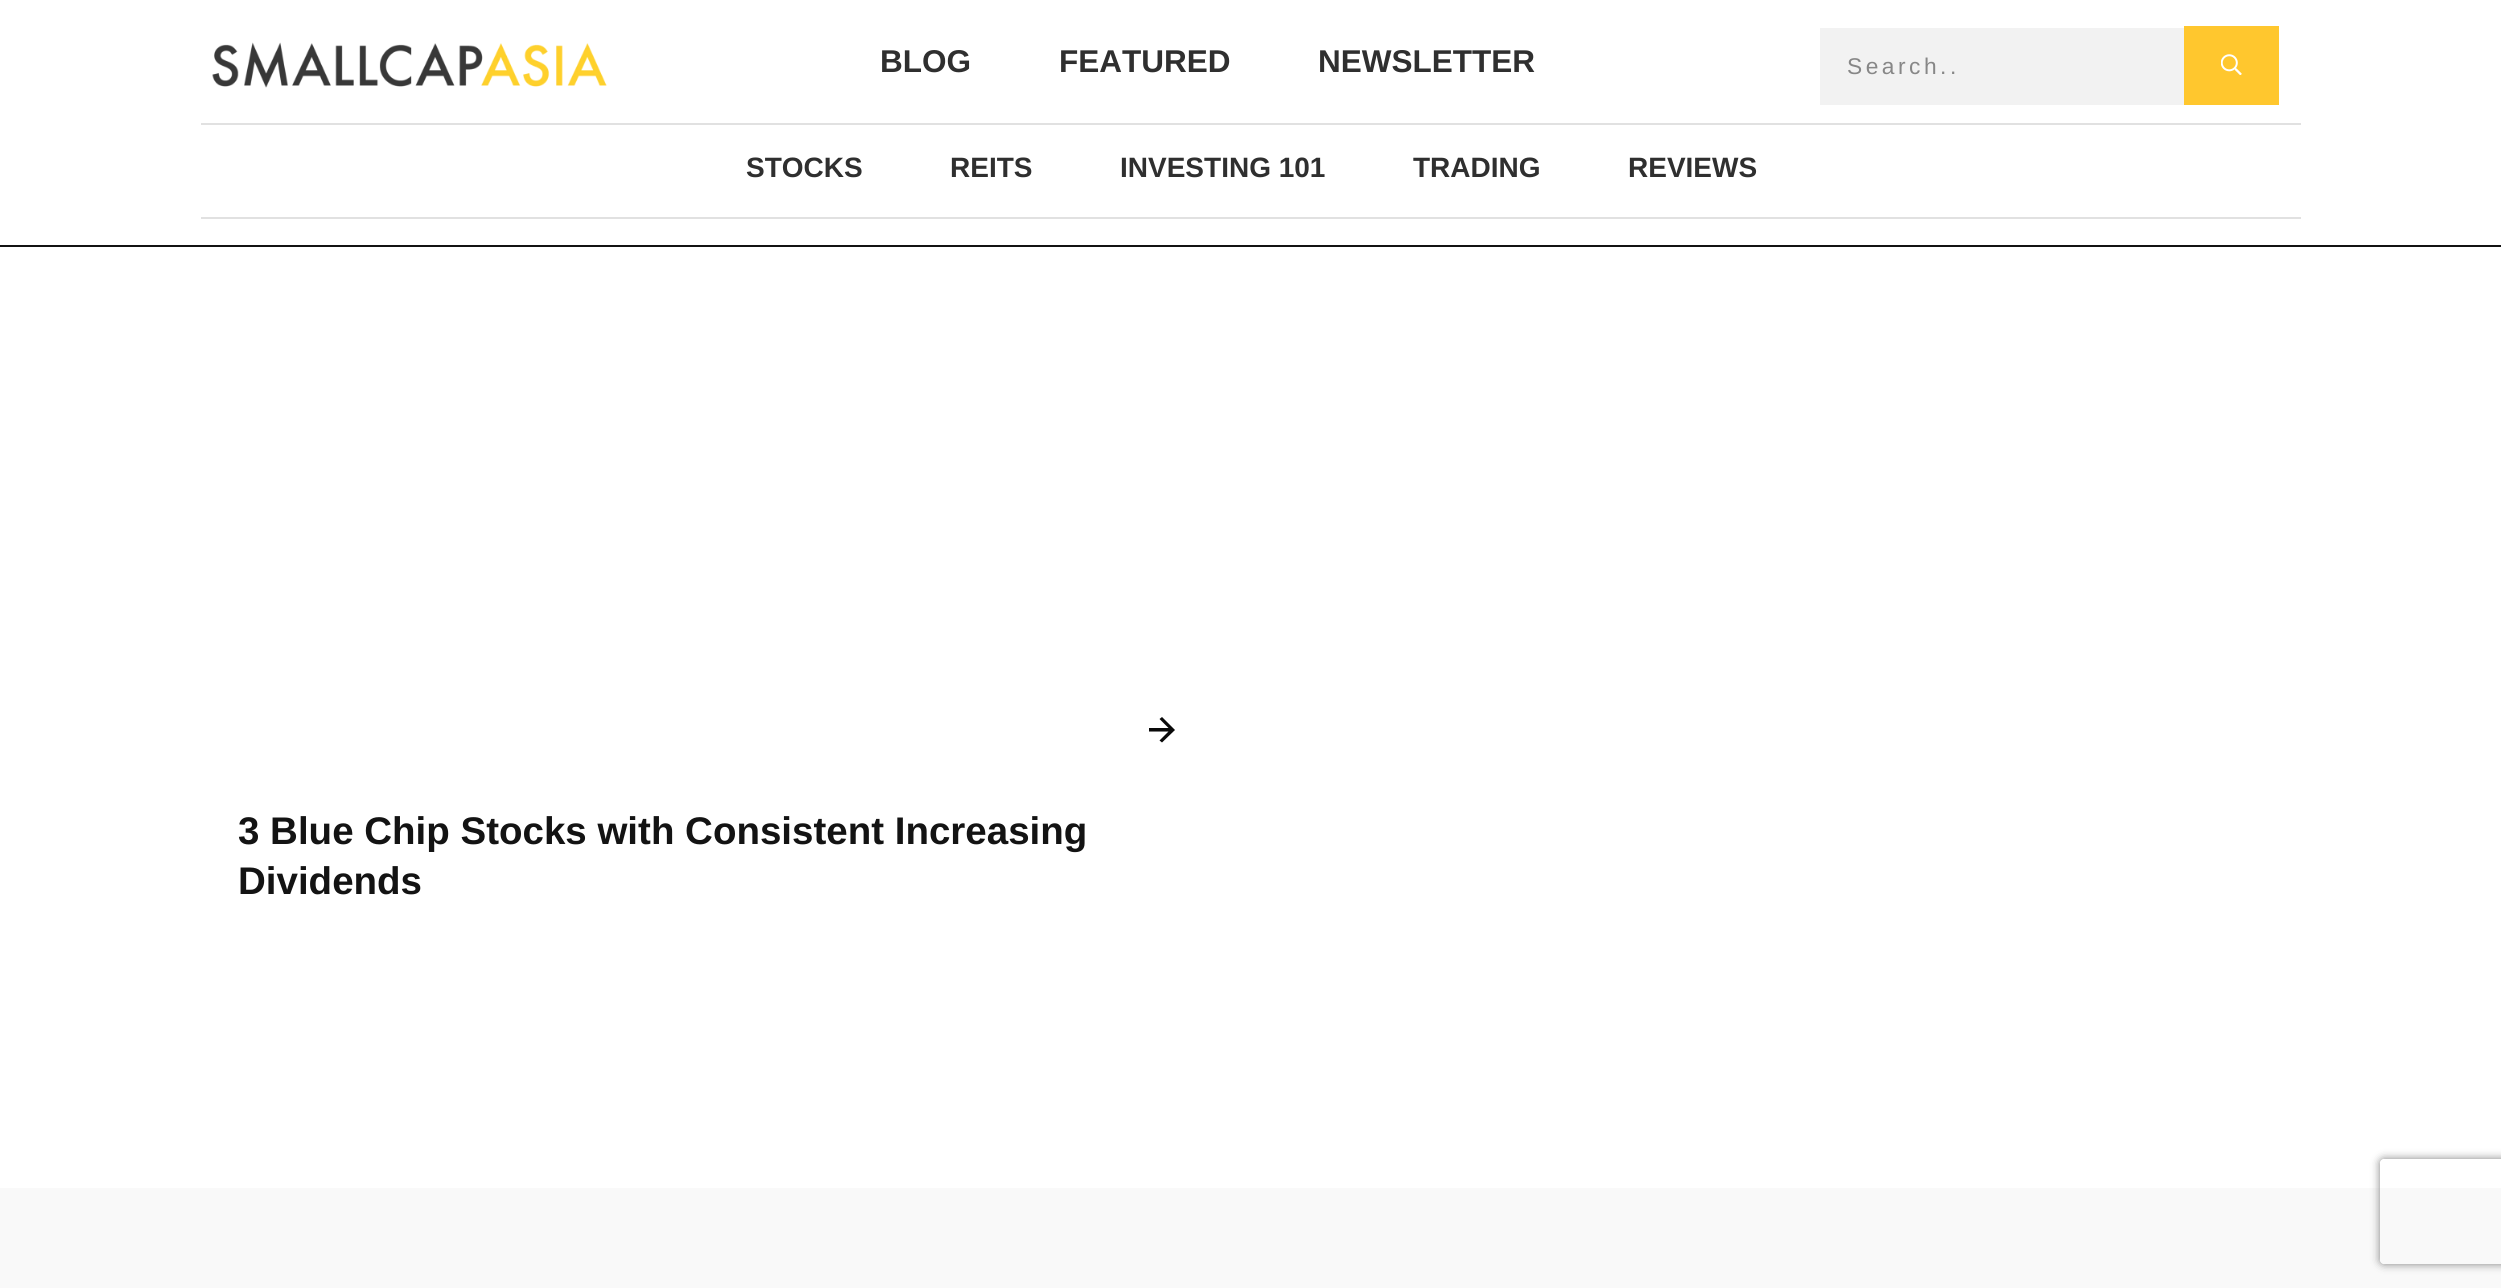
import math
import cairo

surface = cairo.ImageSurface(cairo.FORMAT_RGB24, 2501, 1288)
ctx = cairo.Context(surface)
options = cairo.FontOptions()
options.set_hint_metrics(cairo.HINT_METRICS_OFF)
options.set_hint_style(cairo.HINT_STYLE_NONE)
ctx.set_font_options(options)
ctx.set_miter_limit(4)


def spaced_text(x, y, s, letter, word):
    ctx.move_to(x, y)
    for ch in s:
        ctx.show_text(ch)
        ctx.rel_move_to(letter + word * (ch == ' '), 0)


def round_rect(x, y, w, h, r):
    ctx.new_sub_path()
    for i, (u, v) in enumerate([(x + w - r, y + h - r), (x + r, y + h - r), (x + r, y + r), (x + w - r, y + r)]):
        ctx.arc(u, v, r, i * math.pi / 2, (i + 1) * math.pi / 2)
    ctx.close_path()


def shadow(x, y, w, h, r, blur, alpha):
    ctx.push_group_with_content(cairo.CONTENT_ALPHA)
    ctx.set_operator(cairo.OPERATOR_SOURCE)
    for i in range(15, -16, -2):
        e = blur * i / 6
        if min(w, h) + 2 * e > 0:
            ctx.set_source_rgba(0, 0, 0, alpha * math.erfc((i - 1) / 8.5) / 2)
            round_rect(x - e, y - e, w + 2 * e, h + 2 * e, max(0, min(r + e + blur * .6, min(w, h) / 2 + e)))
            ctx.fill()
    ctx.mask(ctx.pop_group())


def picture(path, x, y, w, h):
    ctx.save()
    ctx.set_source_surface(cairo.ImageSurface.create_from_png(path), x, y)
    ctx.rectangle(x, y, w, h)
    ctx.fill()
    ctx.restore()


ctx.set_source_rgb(1, 1, 1)
ctx.paint()
ctx.set_source_rgb(0.078, 0.078, 0.078)
ctx.rectangle(0, 245, 2501, 2)
ctx.fill()
picture("img1.png", 212, 42, 395, 46)
ctx.select_font_face("Liberation Sans", cairo.FONT_SLANT_NORMAL, cairo.FONT_WEIGHT_BOLD)
ctx.set_font_size(31.5)
ctx.set_source_rgb(0.184, 0.184, 0.184)
ctx.move_to(880, 72)
ctx.show_text("BLOG")
ctx.move_to(1059, 72)
ctx.show_text("FEATURED")
ctx.move_to(1318, 72)
ctx.show_text("NEWSLETTER")
ctx.set_source_rgb(0.949, 0.949, 0.949)
ctx.rectangle(1820, 28, 364, 77)
ctx.fill()
ctx.select_font_face("Liberation Sans")
ctx.set_font_size(22.75)
ctx.set_source_rgb(0.529, 0.529, 0.529)
spaced_text(1847, 74, "Search..", 3.5, 0)
ctx.set_source_rgb(1, 0.78, 0.18)
ctx.rectangle(2184, 26, 95, 79)
ctx.fill()
picture("img2.png", 2221, 54, 21, 21)
ctx.set_source_rgb(0.882, 0.882, 0.882)
ctx.rectangle(201, 123, 2100, 2)
ctx.fill()
ctx.rectangle(201, 217, 2100, 2)
ctx.fill()
ctx.select_font_face("Liberation Sans", cairo.FONT_SLANT_NORMAL, cairo.FONT_WEIGHT_BOLD)
ctx.set_font_size(28)
ctx.set_source_rgb(0.184, 0.184, 0.184)
ctx.move_to(746, 177)
ctx.show_text("STOCKS")
ctx.move_to(950, 177)
ctx.show_text("REITS")
ctx.move_to(1120, 177)
ctx.show_text("INVESTING 101")
ctx.move_to(1413, 177)
ctx.show_text("TRADING")
ctx.move_to(1628, 177)
ctx.show_text("REVIEWS")
ctx.set_source_rgb(0.039, 0.039, 0.039)
ctx.new_path()
ctx.move_to(1162, 717)
ctx.line_to(1159.5, 719)
ctx.line_to(1168.5, 728)
ctx.line_to(1149, 728)
ctx.line_to(1149, 731.5)
ctx.line_to(1168.5, 731.5)
ctx.line_to(1159.5, 740.5)
ctx.line_to(1162, 742.5)
ctx.line_to(1175, 730)
ctx.close_path()
ctx.fill()
ctx.set_font_size(38.5)
ctx.set_source_rgb(0.078, 0.078, 0.078)
ctx.move_to(238, 844)
ctx.show_text("3 Blue Chip Stocks with Consistent Increasing")
ctx.move_to(238, 894)
ctx.show_text("Dividends")
ctx.set_source_rgb(0.973, 0.973, 0.973)
ctx.rectangle(0, 1188, 2501, 100)
ctx.fill()
ctx.save()
ctx.set_fill_rule(cairo.FILL_RULE_EVEN_ODD)
ctx.new_path()
ctx.move_to(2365, 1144)
ctx.line_to(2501, 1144)
ctx.line_to(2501, 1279)
ctx.line_to(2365, 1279)
ctx.close_path()
ctx.move_to(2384, 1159)
ctx.line_to(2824, 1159)
ctx.curve_to(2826, 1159, 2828, 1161, 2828, 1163)
ctx.line_to(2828, 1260)
ctx.curve_to(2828, 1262, 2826, 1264, 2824, 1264)
ctx.line_to(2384, 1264)
ctx.curve_to(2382, 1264, 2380, 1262, 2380, 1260)
ctx.line_to(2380, 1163)
ctx.curve_to(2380, 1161, 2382, 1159, 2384, 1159)
ctx.close_path()
ctx.clip()
ctx.set_source_rgb(0.502, 0.502, 0.502)
shadow(2380, 1159, 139, 105, 4, 4.5, 1)
ctx.restore()
surface.write_to_png("page.png")
